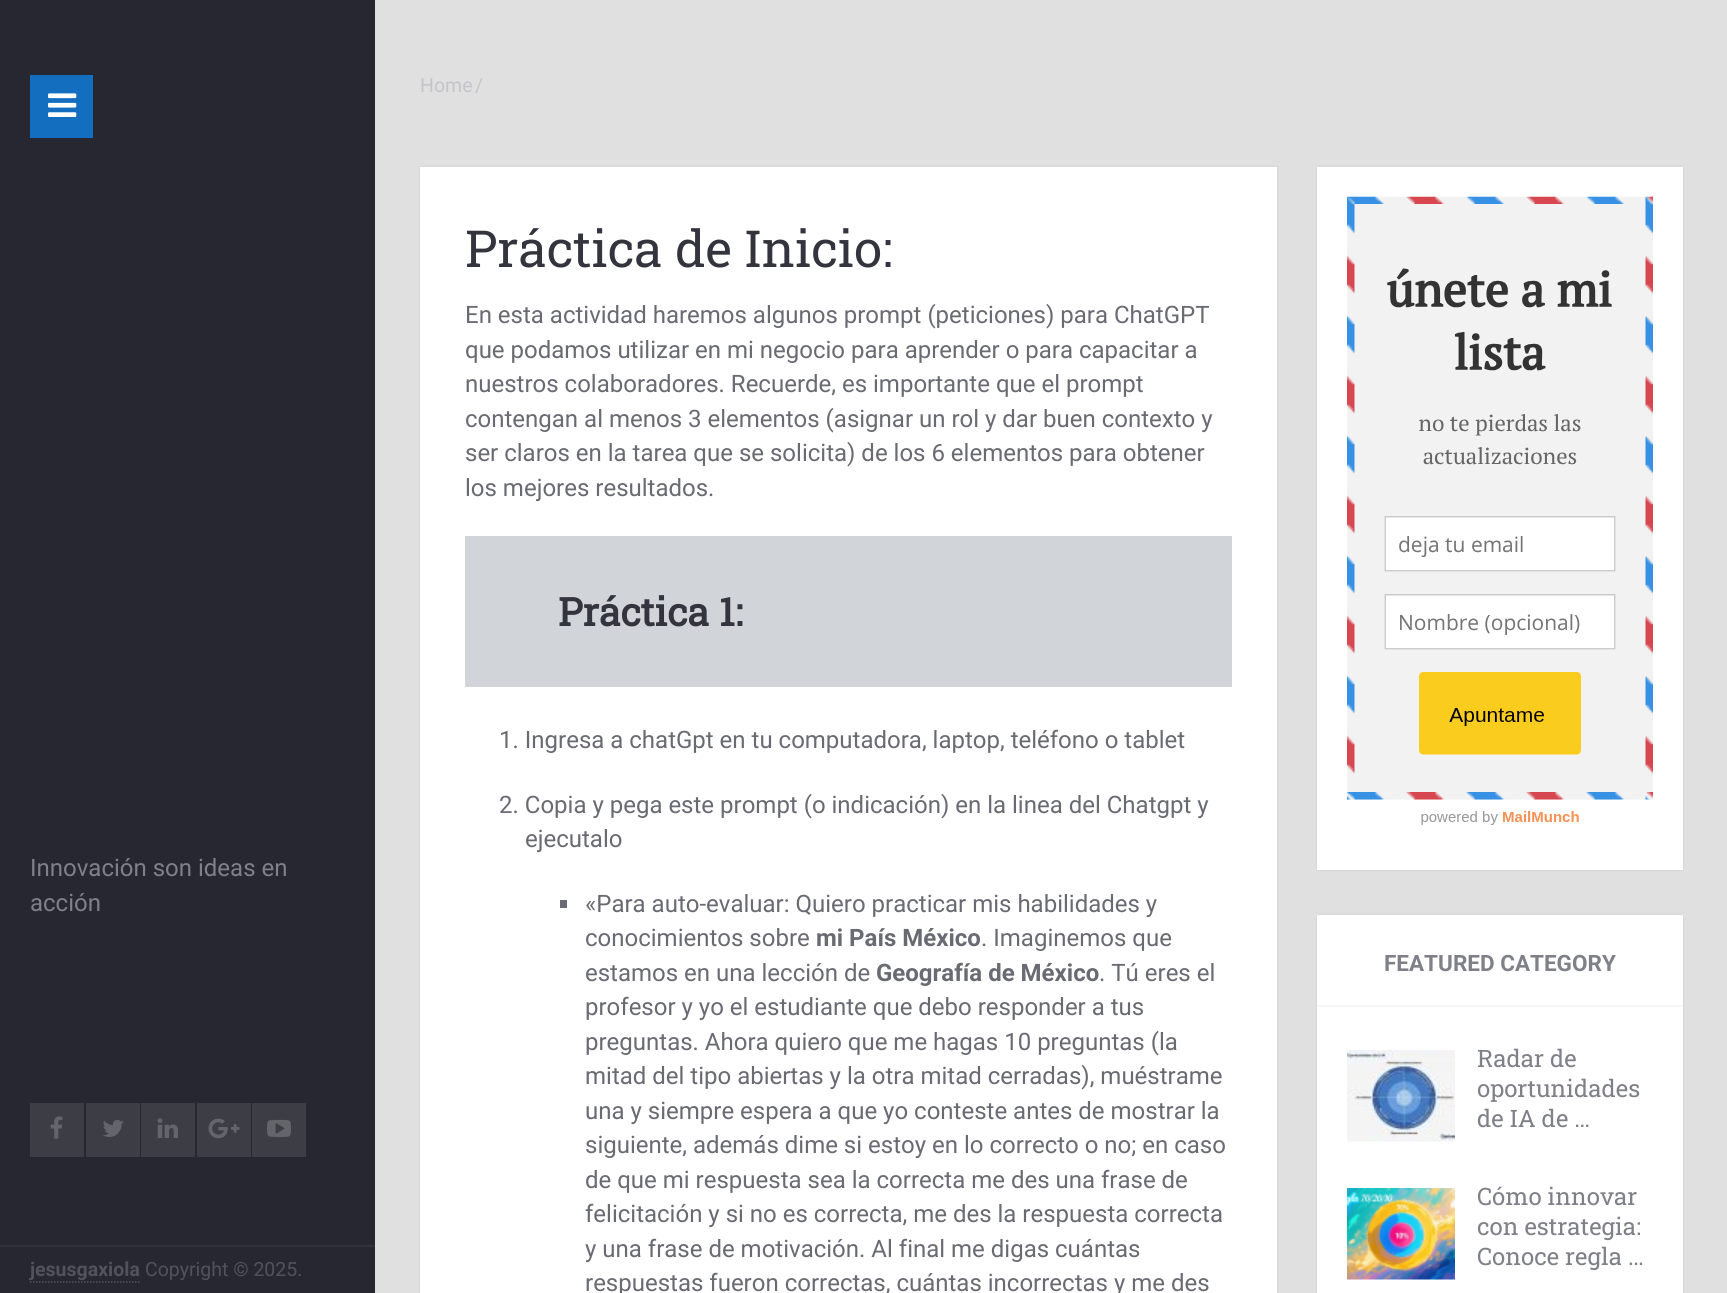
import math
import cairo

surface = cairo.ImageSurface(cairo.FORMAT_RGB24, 1727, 1293)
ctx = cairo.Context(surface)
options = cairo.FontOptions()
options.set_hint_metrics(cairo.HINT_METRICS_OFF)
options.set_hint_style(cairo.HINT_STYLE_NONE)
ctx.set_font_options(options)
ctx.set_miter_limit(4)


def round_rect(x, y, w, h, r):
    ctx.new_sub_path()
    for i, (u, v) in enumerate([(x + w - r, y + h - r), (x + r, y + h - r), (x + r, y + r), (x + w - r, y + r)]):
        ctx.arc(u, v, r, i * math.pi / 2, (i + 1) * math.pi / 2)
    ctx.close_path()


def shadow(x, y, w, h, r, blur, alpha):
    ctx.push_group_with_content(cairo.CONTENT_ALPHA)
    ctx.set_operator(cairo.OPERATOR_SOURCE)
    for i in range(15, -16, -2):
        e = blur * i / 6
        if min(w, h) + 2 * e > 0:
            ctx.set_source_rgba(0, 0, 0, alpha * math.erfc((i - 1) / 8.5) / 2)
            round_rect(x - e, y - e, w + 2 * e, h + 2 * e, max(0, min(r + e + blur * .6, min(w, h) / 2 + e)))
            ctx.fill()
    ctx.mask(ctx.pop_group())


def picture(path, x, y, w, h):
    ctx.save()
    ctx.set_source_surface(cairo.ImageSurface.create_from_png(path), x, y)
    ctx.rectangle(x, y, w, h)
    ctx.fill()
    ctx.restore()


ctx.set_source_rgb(0.878, 0.878, 0.878)
ctx.paint()
ctx.set_source_rgb(0.153, 0.153, 0.192)
ctx.rectangle(0, 0, 375, 1293)
ctx.fill()
ctx.set_source_rgb(0.075, 0.431, 0.749)
ctx.rectangle(30, 75, 63, 63)
ctx.fill()
picture("img1.png", 48, 93, 29, 24)
ctx.select_font_face("Roboto")
ctx.set_font_size(24)
ctx.set_source_rgb(0.498, 0.502, 0.533)
ctx.move_to(30, 876)
ctx.show_text("Innovación son ideas en")
ctx.move_to(30, 911)
ctx.show_text("acción")
ctx.set_source_rgb(0.239, 0.239, 0.275)
ctx.rectangle(30, 1103, 54, 54)
ctx.fill()
picture("img2.png", 50, 1116, 13, 23)
ctx.rectangle(86, 1103, 54, 54)
ctx.fill()
picture("img3.png", 103, 1119, 21, 18)
ctx.rectangle(141, 1103, 54, 54)
ctx.fill()
picture("img4.png", 157, 1118, 21, 20)
ctx.rectangle(197, 1103, 54, 54)
ctx.fill()
picture("img5.png", 208, 1118, 32, 21)
ctx.rectangle(252, 1103, 54, 54)
ctx.fill()
picture("img6.png", 267, 1119, 24, 18)
ctx.set_source_rgb(0.196, 0.196, 0.231)
ctx.rectangle(0, 1245, 375, 2)
ctx.fill()
ctx.select_font_face("Roboto", cairo.FONT_SLANT_NORMAL, cairo.FONT_WEIGHT_BOLD)
ctx.set_font_size(19.5)
ctx.set_source_rgb(0.322, 0.322, 0.353)
ctx.move_to(30, 1276)
ctx.show_text("jesusgaxiola")
ctx.new_path()
ctx.move_to(30, 1282)
ctx.line_to(139.5, 1282)
ctx.set_line_width(1.5)
ctx.set_dash([1.5, 1.5])
ctx.stroke()
ctx.select_font_face("Roboto")
ctx.move_to(145, 1276)
ctx.show_text("Copyright © 2025.")
ctx.set_source_rgb(0.769, 0.769, 0.792)
ctx.move_to(420, 92)
ctx.show_text("Home")
ctx.move_to(475, 92)
ctx.show_text("/")
ctx.set_source_rgb(0, 0, 0)
shadow(420, 167, 857, 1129, 0, 1, 0.1)
ctx.set_source_rgb(1, 1, 1)
ctx.rectangle(420, 167, 857, 1126)
ctx.fill()
ctx.select_font_face("Roboto Slab")
ctx.set_font_size(51)
ctx.set_source_rgb(0.2, 0.204, 0.239)
ctx.move_to(465, 267)
ctx.show_text("Práctica de Inicio:")
ctx.select_font_face("Roboto")
ctx.set_font_size(24)
ctx.set_source_rgb(0.412, 0.416, 0.447)
ctx.move_to(465, 323)
ctx.show_text("En esta actividad haremos algunos prompt (peticiones) para ChatGPT")
ctx.move_to(465, 358)
ctx.show_text("que podamos utilizar en mi negocio para aprender o para capacitar a")
ctx.move_to(465, 392)
ctx.show_text("nuestros colaboradores. Recuerde, es importante que el prompt")
ctx.move_to(465, 427)
ctx.show_text("contengan al menos 3 elementos (asignar un rol y dar buen contexto y")
ctx.move_to(465, 461)
ctx.show_text("ser claros en la tarea que se solicita) de los 6 elementos para obtener")
ctx.move_to(465, 496)
ctx.show_text("los mejores resultados.")
ctx.set_source_rgb(0.82, 0.831, 0.851)
ctx.rectangle(465, 536, 767, 151)
ctx.fill()
ctx.select_font_face("Roboto Slab", cairo.FONT_SLANT_NORMAL, cairo.FONT_WEIGHT_BOLD)
ctx.set_font_size(39)
ctx.set_source_rgb(0.2, 0.204, 0.239)
ctx.move_to(558, 626)
ctx.show_text("Práctica 1:")
ctx.select_font_face("Roboto")
ctx.set_font_size(24)
ctx.set_source_rgb(0.412, 0.416, 0.447)
ctx.move_to(499, 748)
ctx.show_text("1. Ingresa a chatGpt en tu computadora, laptop, teléfono o tablet")
ctx.move_to(499, 813)
ctx.show_text("2. Copia y pega este prompt (o indicación) en la linea del Chatgpt y")
ctx.move_to(525, 847)
ctx.show_text("ejecutalo")
ctx.rectangle(560, 900, 7, 8)
ctx.fill()
ctx.move_to(585, 912)
ctx.show_text("«Para auto-evaluar: Quiero practicar mis habilidades y")
ctx.move_to(585, 946)
ctx.show_text("conocimientos sobre")
ctx.select_font_face("Roboto", cairo.FONT_SLANT_NORMAL, cairo.FONT_WEIGHT_BOLD)
ctx.move_to(816, 946)
ctx.show_text("mi País México")
ctx.select_font_face("Roboto")
ctx.move_to(981, 946)
ctx.show_text(". Imaginemos que")
ctx.move_to(585, 981)
ctx.show_text("estamos en una lección de")
ctx.select_font_face("Roboto", cairo.FONT_SLANT_NORMAL, cairo.FONT_WEIGHT_BOLD)
ctx.move_to(876, 981)
ctx.show_text("Geografía de México")
ctx.select_font_face("Roboto")
ctx.move_to(1099, 981)
ctx.show_text(". Tú eres el")
ctx.move_to(585, 1015)
ctx.show_text("profesor y yo el estudiante que debo responder a tus")
ctx.move_to(585, 1050)
ctx.show_text("preguntas. Ahora quiero que me hagas 10 preguntas (la")
ctx.move_to(585, 1084)
ctx.show_text("mitad del tipo abiertas y la otra mitad cerradas), muéstrame")
ctx.move_to(585, 1119)
ctx.show_text("una y siempre espera a que yo conteste antes de mostrar la")
ctx.move_to(585, 1153)
ctx.show_text("siguiente, además dime si estoy en lo correcto o no; en caso")
ctx.move_to(585, 1188)
ctx.show_text("de que mi respuesta sea la correcta me des una frase de")
ctx.move_to(585, 1222)
ctx.show_text("felicitación y si no es correcta, me des la respuesta correcta")
ctx.move_to(585, 1257)
ctx.show_text("y una frase de motivación. Al final me digas cuántas")
ctx.move_to(585, 1291)
ctx.show_text("respuestas fueron correctas, cuántas incorrectas y me des")
ctx.set_source_rgb(0, 0, 0)
shadow(1317, 167, 366, 703, 0, 1, 0.1)
ctx.set_source_rgb(1, 1, 1)
ctx.rectangle(1317, 167, 366, 703)
ctx.fill()
picture("img7.png", 1347, 196, 306, 629)
ctx.set_source_rgb(0, 0, 0)
shadow(1317, 915, 366, 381, 0, 1, 0.1)
ctx.set_source_rgb(1, 1, 1)
ctx.rectangle(1317, 915, 366, 378)
ctx.fill()
ctx.set_source_rgb(0.961, 0.961, 0.961)
ctx.rectangle(1317, 1005, 366, 2)
ctx.fill()
ctx.select_font_face("Roboto", cairo.FONT_SLANT_NORMAL, cairo.FONT_WEIGHT_BOLD)
ctx.set_font_size(22.5)
ctx.set_source_rgb(0.498, 0.502, 0.533)
ctx.move_to(1384, 971)
ctx.show_text("FEATURED CATEGORY")
picture("img8.png", 1347, 1050, 108, 92)
ctx.select_font_face("Roboto Slab")
ctx.set_font_size(24)
ctx.move_to(1477, 1067)
ctx.show_text("Radar de")
ctx.move_to(1477, 1097)
ctx.show_text("oportunidades")
ctx.move_to(1477, 1127)
ctx.show_text("de IA de …")
picture("img9.png", 1347, 1188, 108, 92)
ctx.move_to(1477, 1205)
ctx.show_text("Cómo innovar")
ctx.move_to(1477, 1235)
ctx.show_text("con estrategia:")
ctx.move_to(1477, 1265)
ctx.show_text("Conoce regla …")
surface.write_to_png("page.png")
